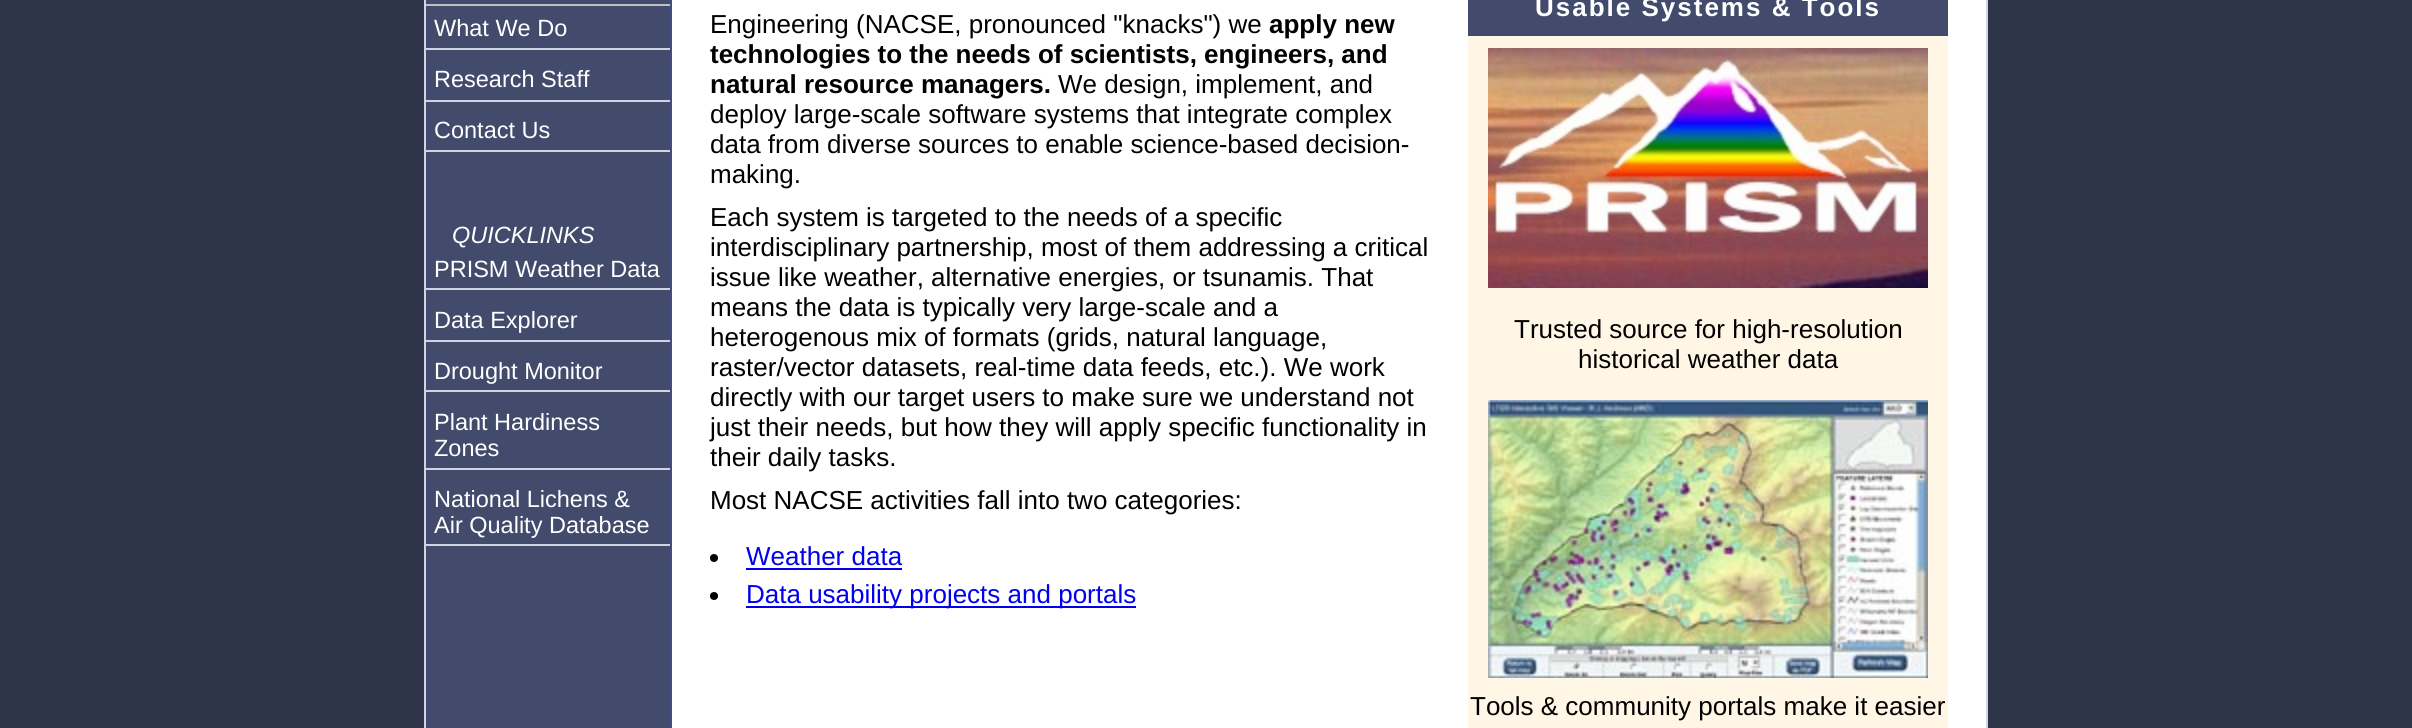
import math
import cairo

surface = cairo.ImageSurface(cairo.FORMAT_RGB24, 2412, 728)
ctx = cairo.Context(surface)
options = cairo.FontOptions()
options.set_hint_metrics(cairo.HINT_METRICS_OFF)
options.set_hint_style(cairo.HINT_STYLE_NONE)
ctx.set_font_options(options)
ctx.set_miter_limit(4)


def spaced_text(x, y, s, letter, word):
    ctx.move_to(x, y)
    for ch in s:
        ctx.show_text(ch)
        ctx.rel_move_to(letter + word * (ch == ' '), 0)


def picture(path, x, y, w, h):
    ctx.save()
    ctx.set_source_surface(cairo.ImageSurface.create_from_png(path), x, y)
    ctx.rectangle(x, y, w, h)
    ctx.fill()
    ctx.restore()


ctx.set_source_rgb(0.18, 0.208, 0.294)
ctx.paint()
ctx.set_source_rgb(0.259, 0.294, 0.42)
ctx.rectangle(426, 0, 244, 728)
ctx.fill()
ctx.rectangle(425, -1, 1562, 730)
ctx.set_source_rgb(0.812, 0.831, 0.902)
ctx.stroke()
ctx.set_source_rgb(0.753, 0.753, 0.753)
ctx.rectangle(426, 4, 244, 2)
ctx.fill()
ctx.set_source_rgb(0.812, 0.831, 0.902)
ctx.rectangle(426, 48, 244, 2)
ctx.fill()
ctx.select_font_face("Liberation Sans")
ctx.set_font_size(23.5)
ctx.set_source_rgb(1, 1, 1)
ctx.move_to(434, 36)
ctx.show_text("What We Do")
ctx.set_source_rgb(0.812, 0.831, 0.902)
ctx.rectangle(426, 100, 244, 2)
ctx.fill()
ctx.set_source_rgb(1, 1, 1)
ctx.move_to(434, 87)
ctx.show_text("Research Staff")
ctx.set_source_rgb(0.812, 0.831, 0.902)
ctx.rectangle(426, 150, 244, 2)
ctx.fill()
ctx.set_source_rgb(1, 1, 1)
ctx.move_to(434, 138)
ctx.show_text("Contact Us")
ctx.set_source_rgb(0.812, 0.831, 0.902)
ctx.rectangle(426, 288, 244, 2)
ctx.fill()
ctx.select_font_face("Liberation Sans", cairo.FONT_SLANT_ITALIC)
ctx.set_source_rgb(1, 1, 1)
ctx.move_to(452, 243)
ctx.show_text("QUICKLINKS")
ctx.select_font_face("Liberation Sans")
ctx.move_to(434, 277)
ctx.show_text("PRISM Weather Data")
ctx.set_source_rgb(0.812, 0.831, 0.902)
ctx.rectangle(426, 340, 244, 2)
ctx.fill()
ctx.set_source_rgb(1, 1, 1)
ctx.move_to(434, 328)
ctx.show_text("Data Explorer")
ctx.set_source_rgb(0.812, 0.831, 0.902)
ctx.rectangle(426, 390, 244, 2)
ctx.fill()
ctx.set_source_rgb(1, 1, 1)
ctx.move_to(434, 379)
ctx.show_text("Drought Monitor")
ctx.set_source_rgb(0.812, 0.831, 0.902)
ctx.rectangle(426, 468, 244, 2)
ctx.fill()
ctx.set_source_rgb(1, 1, 1)
ctx.move_to(434, 430)
ctx.show_text("Plant Hardiness")
ctx.move_to(434, 456)
ctx.show_text("Zones")
ctx.set_source_rgb(0.812, 0.831, 0.902)
ctx.rectangle(426, 544, 244, 2)
ctx.fill()
ctx.set_source_rgb(1, 1, 1)
ctx.move_to(434, 507)
ctx.show_text("National Lichens &")
ctx.move_to(434, 533)
ctx.show_text("Air Quality Database")
ctx.rectangle(672, 0, 1314, 728)
ctx.fill()
ctx.set_source_rgb(0.255, 0.306, 0.502)
ctx.rectangle(670, 0, 2, 728)
ctx.fill()
ctx.set_font_size(26)
ctx.set_source_rgb(0, 0, 0)
ctx.move_to(710, 33)
ctx.show_text("Engineering (NACSE, pronounced \"knacks\") we")
ctx.select_font_face("Liberation Sans", cairo.FONT_SLANT_NORMAL, cairo.FONT_WEIGHT_BOLD)
ctx.move_to(1269, 33)
ctx.show_text("apply new")
ctx.move_to(710, 63)
ctx.show_text("technologies to the needs of scientists, engineers, and")
ctx.move_to(710, 93)
ctx.show_text("natural resource managers.")
ctx.select_font_face("Liberation Sans")
ctx.move_to(1058, 93)
ctx.show_text("We design, implement, and")
ctx.move_to(710, 123)
ctx.show_text("deploy large-scale software systems that integrate complex")
ctx.move_to(710, 153)
ctx.show_text("data from diverse sources to enable science-based decision-")
ctx.move_to(710, 183)
ctx.show_text("making.")
ctx.set_source_rgb(1, 0.961, 0.902)
ctx.rectangle(1468, 36, 480, 692)
ctx.fill()
ctx.set_source_rgb(0.259, 0.294, 0.42)
ctx.rectangle(1468, 0, 480, 36)
ctx.fill()
ctx.select_font_face("Liberation Sans", cairo.FONT_SLANT_NORMAL, cairo.FONT_WEIGHT_BOLD)
ctx.set_source_rgb(1, 1, 1)
spaced_text(1535, 16, "Usable Systems & Tools", 2, 0)
picture("img1.png", 1488, 48, 440, 240)
ctx.select_font_face("Liberation Sans")
ctx.set_source_rgb(0, 0, 0)
ctx.move_to(1514, 338)
ctx.show_text("Trusted source for high-resolution")
ctx.move_to(1578, 368)
ctx.show_text("historical weather data")
picture("img2.png", 1488, 400, 440, 278)
ctx.move_to(1470, 715)
ctx.show_text("Tools & community portals make it easier")
ctx.move_to(710, 226)
ctx.show_text("Each system is targeted to the needs of a specific")
ctx.move_to(710, 256)
ctx.show_text("interdisciplinary partnership, most of them addressing a critical")
ctx.move_to(710, 286)
ctx.show_text("issue like weather, alternative energies, or tsunamis. That")
ctx.move_to(710, 316)
ctx.show_text("means the data is typically very large-scale and a")
ctx.move_to(710, 346)
ctx.show_text("heterogenous mix of formats (grids, natural language,")
ctx.move_to(710, 376)
ctx.show_text("raster/vector datasets, real-time data feeds, etc.). We work")
ctx.move_to(710, 406)
ctx.show_text("directly with our target users to make sure we understand not")
ctx.move_to(710, 436)
ctx.show_text("just their needs, but how they will apply specific functionality in")
ctx.move_to(710, 466)
ctx.show_text("their daily tasks.")
ctx.move_to(710, 509)
ctx.show_text("Most NACSE activities fall into two categories:")
ctx.new_path()
ctx.arc(714, 558, 4, 0, 2 * math.pi)
ctx.fill()
ctx.set_source_rgb(0, 0, 0.933)
ctx.move_to(746, 565)
ctx.show_text("Weather data")
ctx.rectangle(746, 568, 156, 2)
ctx.fill()
ctx.set_source_rgb(0, 0, 0)
ctx.arc(714, 596, 4, 0, 2 * math.pi)
ctx.fill()
ctx.set_source_rgb(0, 0, 0.933)
ctx.rectangle(746, 606, 390, 2)
ctx.fill()
ctx.move_to(746, 603)
ctx.show_text("Data usability projects and portals")
surface.write_to_png("page.png")
